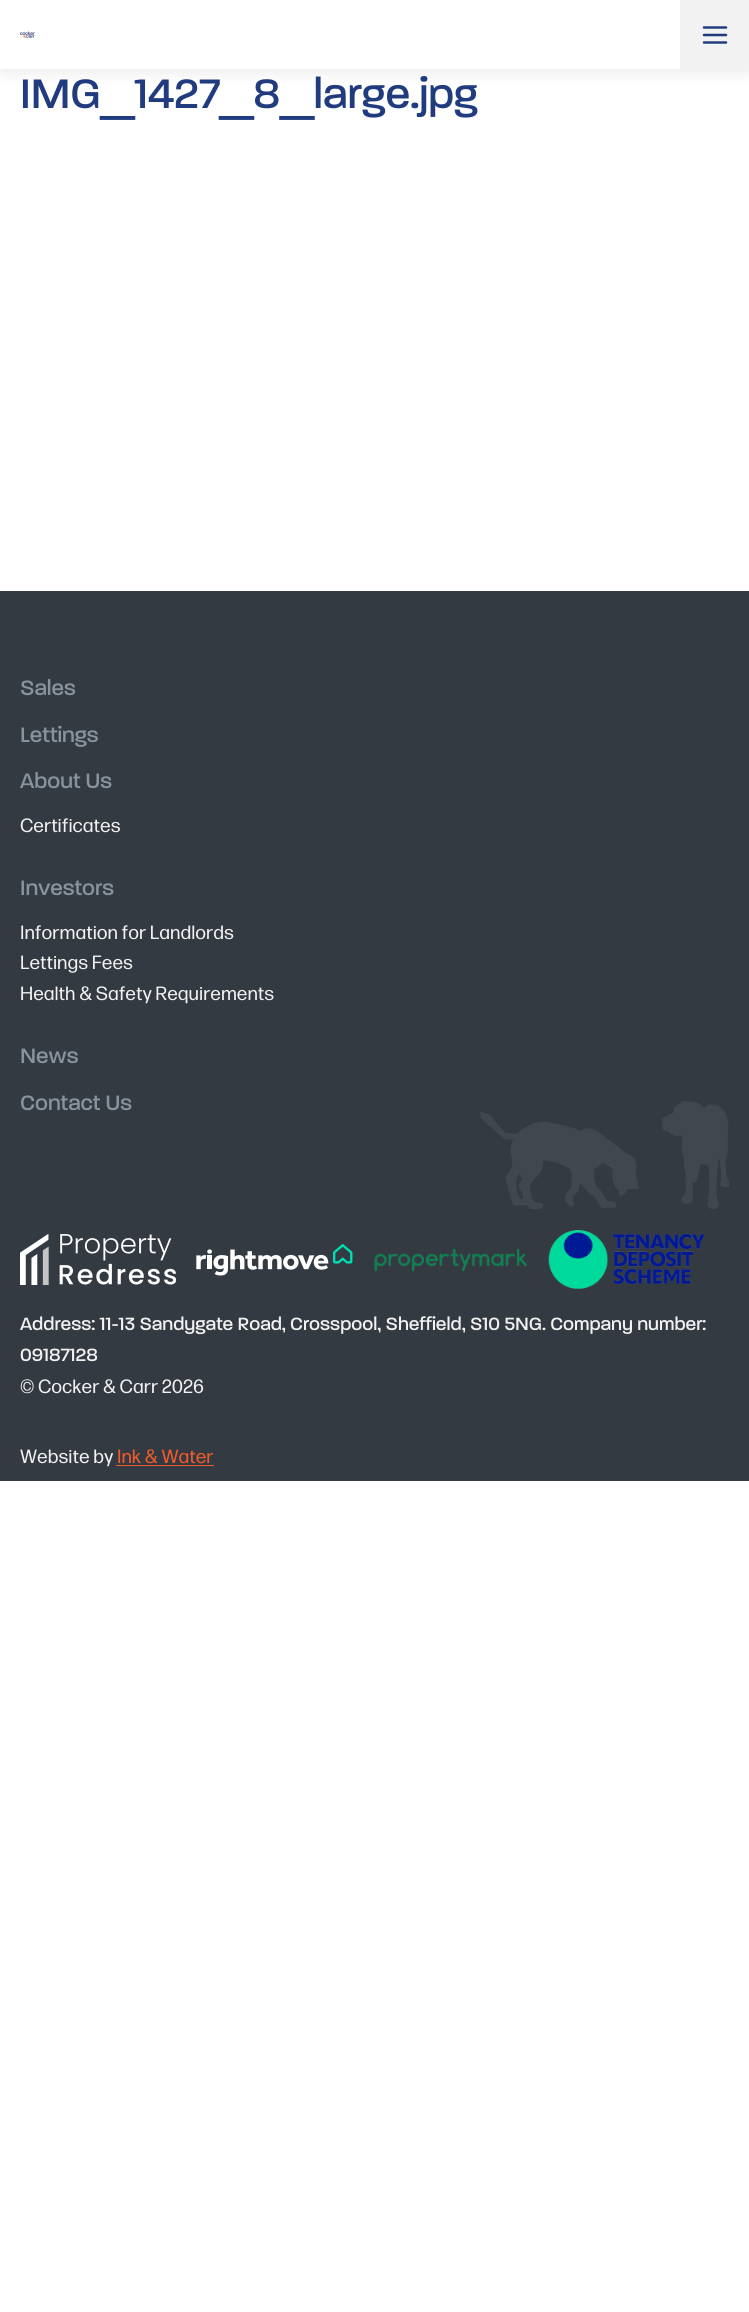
import math
import cairo

surface = cairo.ImageSurface(cairo.FORMAT_RGB24, 749, 2312)
ctx = cairo.Context(surface)
options = cairo.FontOptions()
options.set_hint_metrics(cairo.HINT_METRICS_OFF)
options.set_hint_style(cairo.HINT_STYLE_NONE)
ctx.set_font_options(options)
ctx.set_miter_limit(4)


def round_rect(x, y, w, h, r):
    ctx.new_sub_path()
    for i, (u, v) in enumerate([(x + w - r, y + h - r), (x + r, y + h - r), (x + r, y + r), (x + w - r, y + r)]):
        ctx.arc(u, v, r, i * math.pi / 2, (i + 1) * math.pi / 2)
    ctx.close_path()


def shadow(x, y, w, h, r, blur, alpha):
    ctx.push_group_with_content(cairo.CONTENT_ALPHA)
    ctx.set_operator(cairo.OPERATOR_SOURCE)
    for i in range(15, -16, -2):
        e = blur * i / 6
        if min(w, h) + 2 * e > 0:
            ctx.set_source_rgba(0, 0, 0, alpha * math.erfc((i - 1) / 8.5) / 2)
            round_rect(x - e, y - e, w + 2 * e, h + 2 * e, max(0, min(r + e + blur * .6, min(w, h) / 2 + e)))
            ctx.fill()
    ctx.mask(ctx.pop_group())


def picture(path, x, y, w, h):
    ctx.save()
    ctx.set_source_surface(cairo.ImageSurface.create_from_png(path), x, y)
    ctx.rectangle(x, y, w, h)
    ctx.fill()
    ctx.restore()


ctx.set_source_rgb(1, 1, 1)
ctx.paint()
ctx.set_source_rgb(0, 0, 0)
shadow(1, 3, 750, 68, 0, 7.5, 0.1)
ctx.set_source_rgb(1, 1, 1)
ctx.rectangle(0, 0, 680, 69)
ctx.fill()
picture("img1.png", 20, 31, 15, 7)
ctx.set_source_rgb(0.949, 0.949, 0.949)
ctx.rectangle(680, 0, 69, 69)
ctx.fill()
ctx.new_path()
ctx.move_to(704, 35)
ctx.line_to(726, 35)
ctx.move_to(704, 27.5)
ctx.line_to(726, 27.5)
ctx.move_to(704, 42.5)
ctx.line_to(726, 42.5)
ctx.set_source_rgb(0.129, 0.231, 0.498)
ctx.set_line_width(2.5)
ctx.set_line_cap(cairo.LINE_CAP_ROUND)
ctx.set_line_join(cairo.LINE_JOIN_ROUND)
ctx.stroke()
ctx.select_font_face("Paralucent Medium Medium")
ctx.set_font_size(44.5)
ctx.move_to(20, 108)
ctx.show_text("IMG_1427_8_large.jpg")
ctx.set_source_rgb(0.204, 0.227, 0.255)
ctx.rectangle(0, 591, 749, 890)
ctx.fill()
ctx.set_font_size(22.5)
ctx.set_source_rgb(0.537, 0.576, 0.624)
ctx.move_to(20, 695)
ctx.show_text("Sales")
ctx.move_to(20, 742)
ctx.show_text("Lettings")
ctx.move_to(20, 788)
ctx.show_text("About Us")
ctx.select_font_face("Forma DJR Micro")
ctx.set_font_size(19.2)
ctx.set_source_rgb(0.949, 0.949, 0.949)
ctx.move_to(20, 832)
ctx.show_text("Certificates")
ctx.select_font_face("Paralucent Medium Medium")
ctx.set_font_size(22.5)
ctx.set_source_rgb(0.537, 0.576, 0.624)
ctx.move_to(20, 895)
ctx.show_text("Investors")
ctx.select_font_face("Forma DJR Micro")
ctx.set_font_size(19.2)
ctx.set_source_rgb(0.949, 0.949, 0.949)
ctx.move_to(20, 939)
ctx.show_text("Information for Landlords")
ctx.move_to(20, 969)
ctx.show_text("Lettings Fees")
ctx.move_to(20, 1000)
ctx.show_text("Health & Safety Requirements")
ctx.select_font_face("Paralucent Medium Medium")
ctx.set_font_size(22.5)
ctx.set_source_rgb(0.537, 0.576, 0.624)
ctx.move_to(20, 1063)
ctx.show_text("News")
ctx.move_to(20, 1110)
ctx.show_text("Contact Us")
picture("img2.png", 480, 1101, 250, 108)
picture("img3.png", 20, 1234, 156, 51)
picture("img4.png", 196, 1244, 157, 32)
picture("img5.png", 374, 1248, 153, 24)
picture("img6.png", 548, 1230, 157, 59)
ctx.set_font_size(19.2)
ctx.set_source_rgb(0.949, 0.949, 0.949)
ctx.move_to(20, 1330)
ctx.show_text("Address: 11-13 Sandygate Road, Crosspool, Sheffield, S10 5NG. Company number:")
ctx.move_to(20, 1361)
ctx.show_text("09187128")
ctx.select_font_face("Forma DJR Micro")
ctx.move_to(20, 1393)
ctx.show_text("© Cocker & Carr 2026")
ctx.move_to(20, 1463)
ctx.show_text("Website by")
ctx.set_source_rgb(0.945, 0.353, 0.165)
ctx.rectangle(116, 1465, 98, 1)
ctx.fill()
ctx.move_to(117, 1463)
ctx.show_text("Ink & Water")
surface.write_to_png("page.png")
